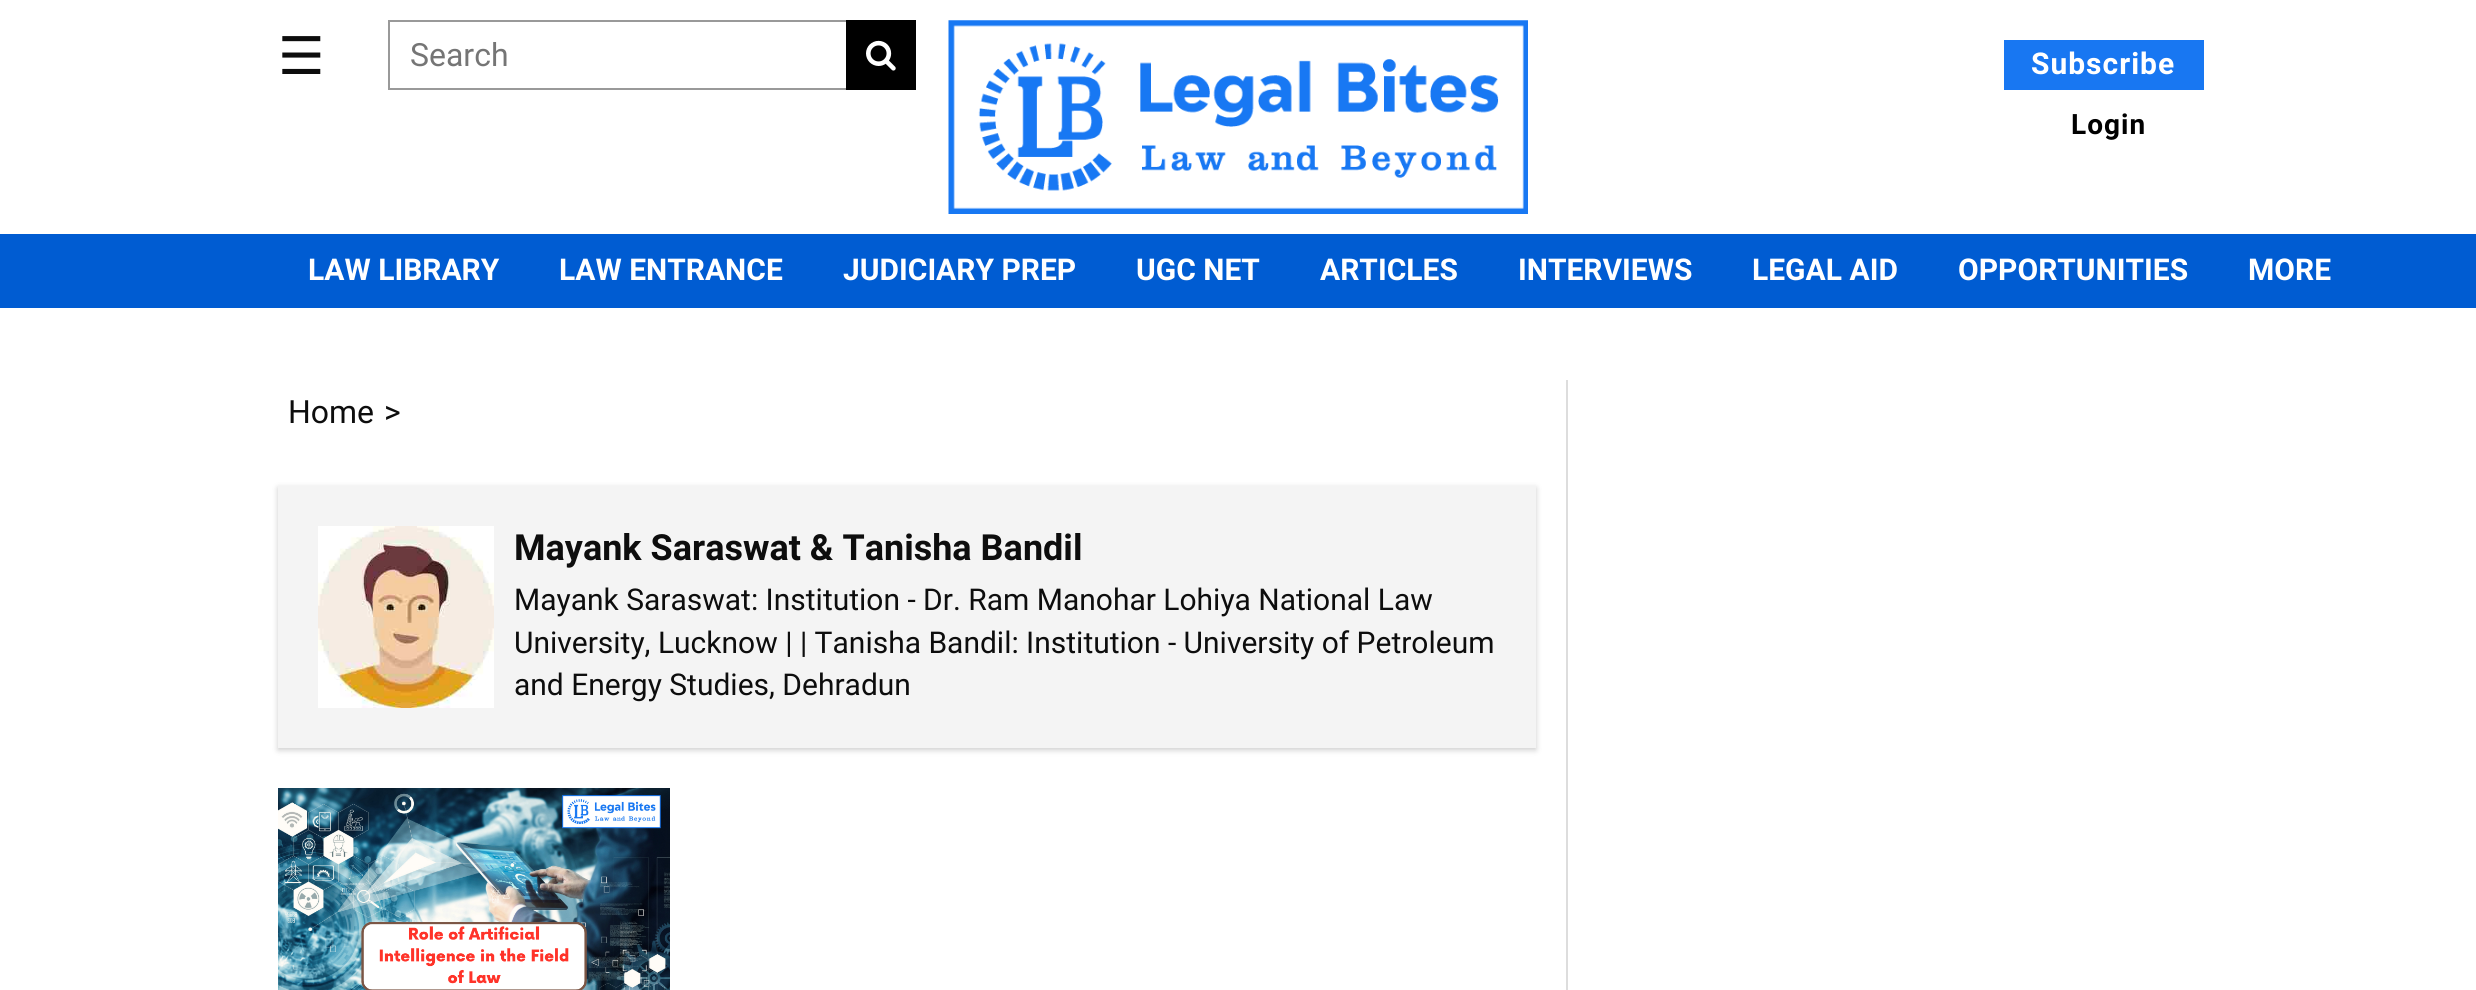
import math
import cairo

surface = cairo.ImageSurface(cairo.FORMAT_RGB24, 2476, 990)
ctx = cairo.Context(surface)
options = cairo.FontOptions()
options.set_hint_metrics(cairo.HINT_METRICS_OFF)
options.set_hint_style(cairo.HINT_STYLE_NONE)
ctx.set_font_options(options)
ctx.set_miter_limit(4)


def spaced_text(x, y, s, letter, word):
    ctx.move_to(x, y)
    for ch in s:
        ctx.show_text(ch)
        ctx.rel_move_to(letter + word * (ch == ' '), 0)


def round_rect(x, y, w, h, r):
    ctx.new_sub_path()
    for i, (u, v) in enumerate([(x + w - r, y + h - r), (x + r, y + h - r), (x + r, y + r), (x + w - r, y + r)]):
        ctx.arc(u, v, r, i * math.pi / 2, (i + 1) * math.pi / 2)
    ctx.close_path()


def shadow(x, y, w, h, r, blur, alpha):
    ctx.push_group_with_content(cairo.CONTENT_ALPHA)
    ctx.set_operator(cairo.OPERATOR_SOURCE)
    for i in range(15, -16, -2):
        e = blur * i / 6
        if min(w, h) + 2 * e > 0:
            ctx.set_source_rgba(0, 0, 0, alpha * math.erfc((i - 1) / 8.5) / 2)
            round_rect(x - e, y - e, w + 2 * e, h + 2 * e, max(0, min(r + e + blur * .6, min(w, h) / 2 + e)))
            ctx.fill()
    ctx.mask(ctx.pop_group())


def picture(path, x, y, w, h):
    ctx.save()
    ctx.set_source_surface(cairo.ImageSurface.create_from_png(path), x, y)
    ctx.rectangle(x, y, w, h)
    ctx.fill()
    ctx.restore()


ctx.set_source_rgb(1, 1, 1)
ctx.paint()
ctx.select_font_face("DejaVu Sans")
ctx.set_font_size(52)
ctx.set_source_rgb(0.051, 0.051, 0.051)
ctx.move_to(278, 74)
ctx.show_text("☰")
ctx.rectangle(389, 21, 526, 68)
ctx.set_source_rgb(0.6, 0.6, 0.6)
ctx.stroke()
ctx.select_font_face("Roboto")
ctx.set_font_size(32)
ctx.set_source_rgb(0.459, 0.459, 0.459)
ctx.move_to(410, 66)
ctx.show_text("Search")
ctx.set_source_rgb(0, 0, 0)
ctx.rectangle(846, 20, 70, 70)
ctx.fill()
picture("img1.png", 866, 40, 30, 31)
picture("img2.png", 948, 20, 580, 194)
ctx.set_source_rgb(0.094, 0.467, 0.949)
ctx.rectangle(2004, 40, 200, 50)
ctx.fill()
ctx.select_font_face("Roboto", cairo.FONT_SLANT_NORMAL, cairo.FONT_WEIGHT_BOLD)
ctx.set_font_size(30)
ctx.set_source_rgb(1, 1, 1)
spaced_text(2031, 74, "Subscribe", 1, 0)
ctx.set_font_size(28)
ctx.set_source_rgb(0, 0, 0)
spaced_text(2071, 134, "Login", 1, 0)
ctx.set_source_rgb(0, 0.361, 0.824)
ctx.rectangle(0, 234, 2476, 74)
ctx.fill()
ctx.set_font_size(30)
ctx.set_source_rgb(1, 1, 1)
ctx.move_to(308, 280)
ctx.show_text("LAW LIBRARY")
ctx.move_to(559, 280)
ctx.show_text("LAW ENTRANCE")
ctx.move_to(843, 280)
ctx.show_text("JUDICIARY PREP")
ctx.move_to(1136, 280)
ctx.show_text("UGC NET")
ctx.move_to(1320, 280)
ctx.show_text("ARTICLES")
ctx.move_to(1518, 280)
ctx.show_text("INTERVIEWS")
ctx.move_to(1752, 280)
ctx.show_text("LEGAL AID")
ctx.move_to(1958, 280)
ctx.show_text("OPPORTUNITIES")
ctx.move_to(2248, 280)
ctx.show_text("MORE")
ctx.set_source_rgb(0.867, 0.867, 0.867)
ctx.rectangle(1566, 380, 2, 610)
ctx.fill()
ctx.select_font_face("Roboto")
ctx.set_font_size(32)
ctx.set_source_rgb(0.051, 0.051, 0.051)
ctx.move_to(288, 423)
ctx.show_text("Home")
ctx.move_to(384, 423)
ctx.show_text(">")
ctx.set_source_rgb(0, 0, 0)
shadow(278, 488, 1258, 262, 0, 3, 0.2)
ctx.set_source_rgb(0.957, 0.957, 0.957)
ctx.rectangle(278, 486, 1258, 262)
ctx.fill()
picture("img3.png", 318, 526, 176, 182)
ctx.select_font_face("Roboto", cairo.FONT_SLANT_NORMAL, cairo.FONT_WEIGHT_BOLD)
ctx.set_font_size(36)
ctx.set_source_rgb(0.051, 0.051, 0.051)
ctx.move_to(514, 560)
ctx.show_text("Mayank Saraswat & Tanisha Bandil")
ctx.select_font_face("Roboto")
ctx.set_font_size(30)
ctx.move_to(514, 610)
ctx.show_text("Mayank Saraswat: Institution - Dr. Ram Manohar Lohiya National Law")
ctx.move_to(514, 653)
ctx.show_text("University, Lucknow | | Tanisha Bandil: Institution - University of Petroleum")
ctx.move_to(514, 695)
ctx.show_text("and Energy Studies, Dehradun")
picture("img4.png", 278, 788, 392, 202)
surface.write_to_png("page.png")
